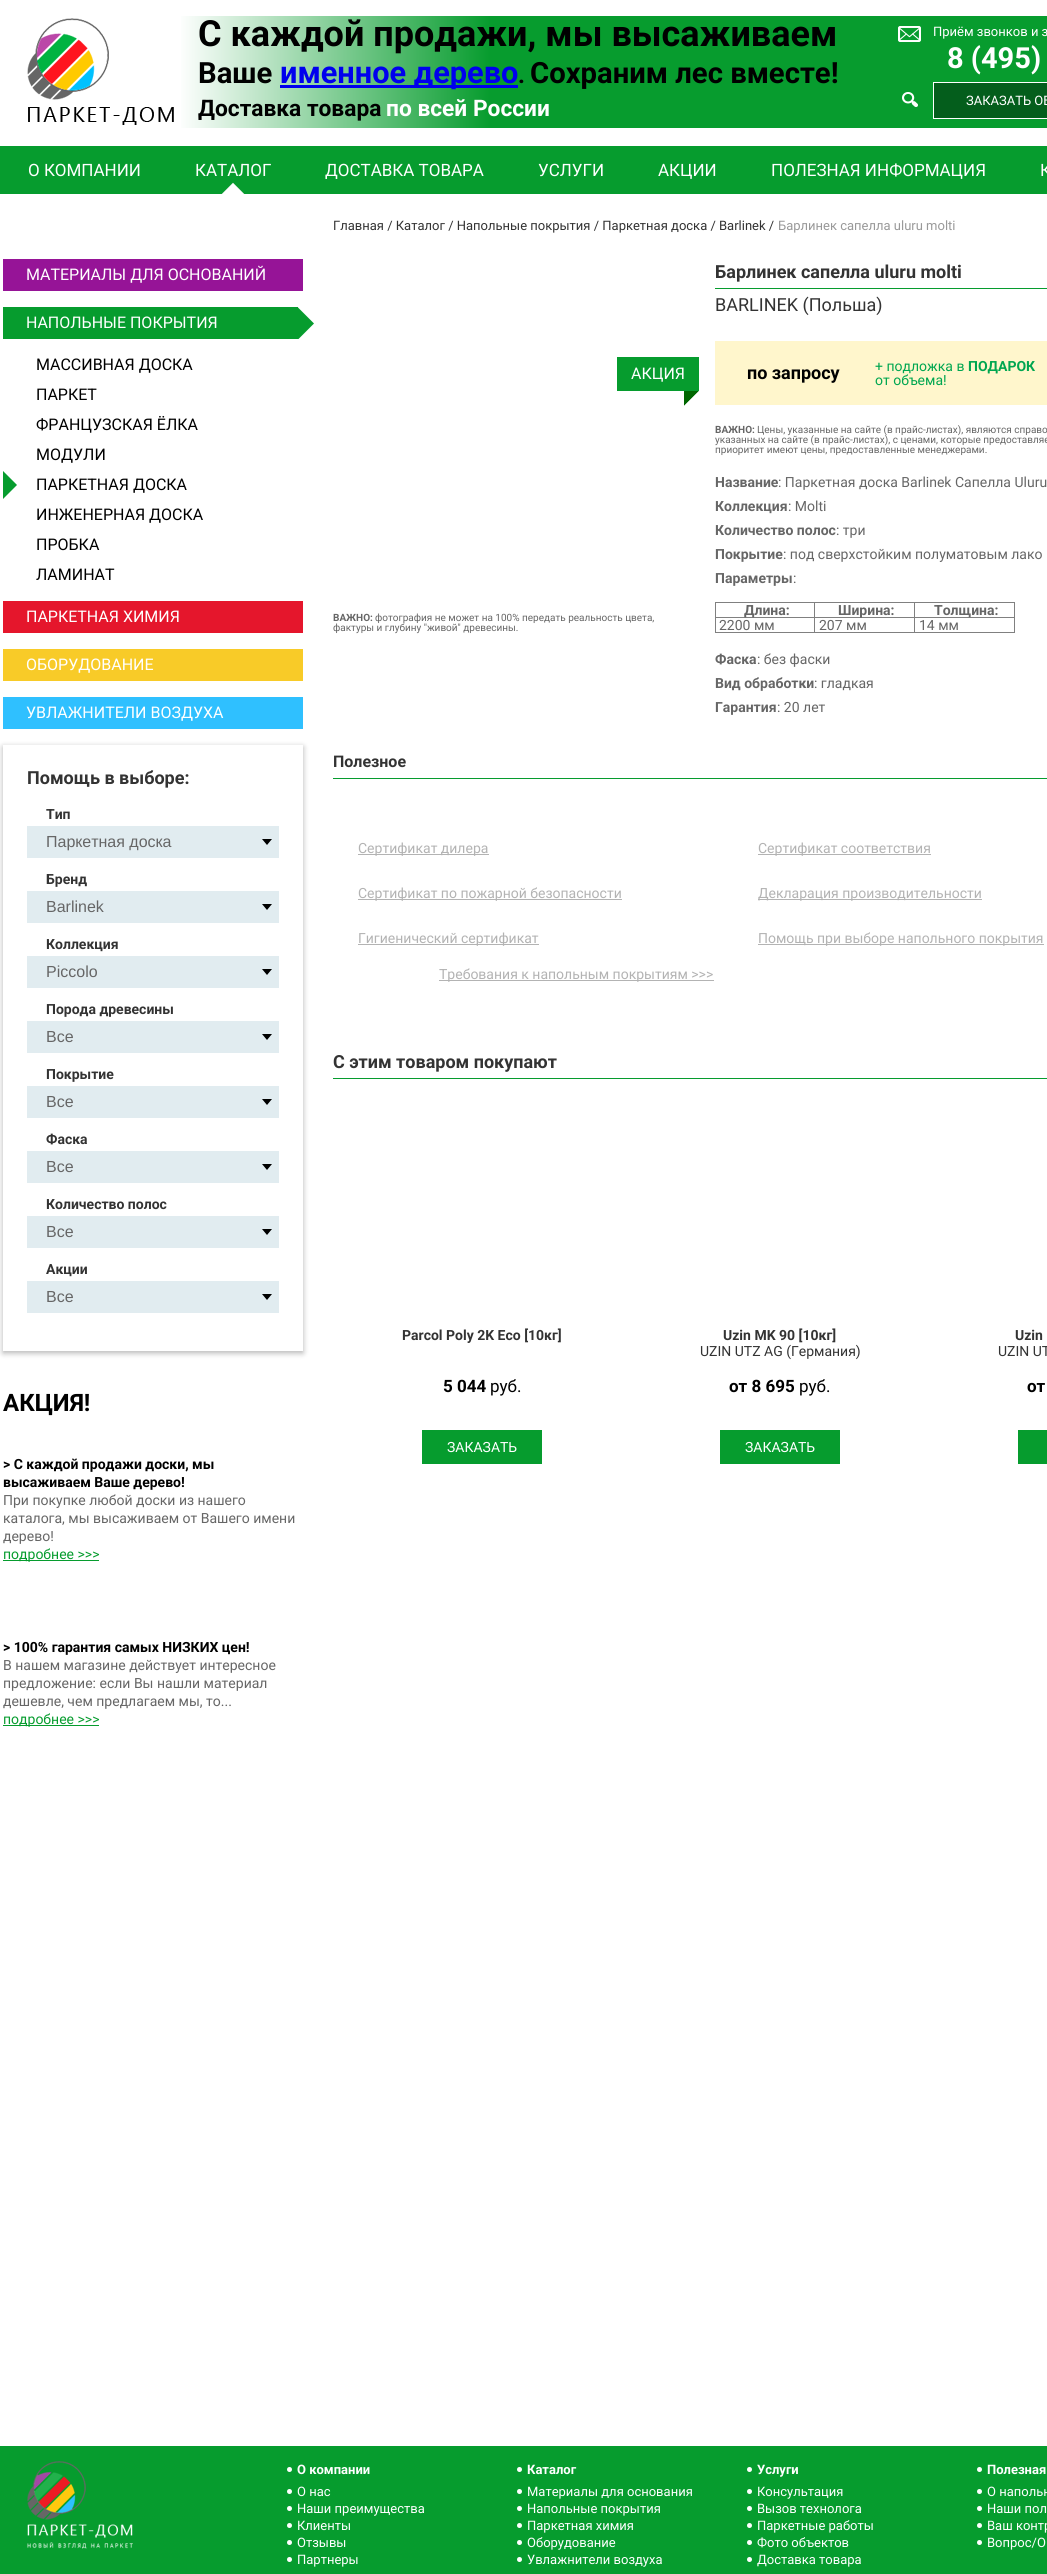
import math
import cairo

surface = cairo.ImageSurface(cairo.FORMAT_RGB24, 1047, 2574)
ctx = cairo.Context(surface)
options = cairo.FontOptions()
options.set_hint_metrics(cairo.HINT_METRICS_OFF)
options.set_hint_style(cairo.HINT_STYLE_NONE)
ctx.set_font_options(options)
ctx.set_miter_limit(4)


def round_rect(x, y, w, h, r):
    ctx.new_sub_path()
    for i, (u, v) in enumerate([(x + w - r, y + h - r), (x + r, y + h - r), (x + r, y + r), (x + w - r, y + r)]):
        ctx.arc(u, v, r, i * math.pi / 2, (i + 1) * math.pi / 2)
    ctx.close_path()


def shadow(x, y, w, h, r, blur, alpha):
    ctx.push_group_with_content(cairo.CONTENT_ALPHA)
    ctx.set_operator(cairo.OPERATOR_SOURCE)
    for i in range(15, -16, -2):
        e = blur * i / 6
        if min(w, h) + 2 * e > 0:
            ctx.set_source_rgba(0, 0, 0, alpha * math.erfc((i - 1) / 8.5) / 2)
            round_rect(x - e, y - e, w + 2 * e, h + 2 * e, max(0, min(r + e + blur * .6, min(w, h) / 2 + e)))
            ctx.fill()
    ctx.mask(ctx.pop_group())


def picture(path, x, y, w, h):
    ctx.save()
    ctx.set_source_surface(cairo.ImageSurface.create_from_png(path), x, y)
    ctx.rectangle(x, y, w, h)
    ctx.fill()
    ctx.restore()


ctx.set_source_rgb(1, 1, 1)
ctx.paint()
picture("img1.png", 27, 18, 147, 107)
gradient = cairo.LinearGradient(178, 72, 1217, 72)
gradient.add_color_stop_rgba(0, 1, 1, 1, 1)
gradient.add_color_stop_rgba(0.3, 0.027, 0.612, 0.18, 1)
gradient.add_color_stop_rgba(1, 0.027, 0.612, 0.18, 1)
ctx.set_source(gradient)
ctx.rectangle(181, 16, 866, 112)
ctx.fill()
ctx.select_font_face("Roboto", cairo.FONT_SLANT_NORMAL, cairo.FONT_WEIGHT_BOLD)
ctx.set_font_size(36)
ctx.set_source_rgb(0, 0, 0)
ctx.move_to(198, 46)
ctx.show_text("С каждой продажи, мы высаживаем")
ctx.set_font_size(29.25)
ctx.move_to(198, 83)
ctx.show_text("Ваше")
ctx.set_source_rgb(0, 0, 0.933)
ctx.rectangle(280, 85, 238, 3)
ctx.fill()
ctx.set_font_size(30.75)
ctx.move_to(280, 83)
ctx.show_text("именное дерево")
ctx.set_font_size(24)
ctx.set_source_rgb(0, 0, 0)
ctx.move_to(518, 83)
ctx.show_text(".")
ctx.set_font_size(29.25)
ctx.move_to(530, 83)
ctx.show_text("Сохраним лес вместе!")
ctx.set_font_size(22.75)
ctx.move_to(198, 116)
ctx.show_text("Доставка товара")
ctx.set_source_rgb(1, 1, 1)
ctx.move_to(386, 116)
ctx.show_text("по всей России")
picture("img2.png", 902, 92, 16, 15)
picture("img3.png", 898, 26, 23, 16)
ctx.select_font_face("Roboto")
ctx.set_font_size(13)
ctx.move_to(933, 36)
ctx.show_text("Приём звонков и з")
ctx.select_font_face("Roboto", cairo.FONT_SLANT_NORMAL, cairo.FONT_WEIGHT_BOLD)
ctx.set_font_size(29)
ctx.move_to(947, 68)
ctx.show_text("8 (495)")
ctx.set_source_rgb(0.016, 0.369, 0.11)
ctx.rectangle(933.5, 82.5, 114, 36)
ctx.fill_preserve()
ctx.set_source_rgb(1, 1, 1)
ctx.set_line_width(1)
ctx.stroke()
ctx.select_font_face("Roboto")
ctx.set_font_size(13)
ctx.move_to(966, 105)
ctx.show_text("ЗАКАЗАТЬ ОБ")
ctx.set_source_rgb(0.027, 0.612, 0.18)
ctx.rectangle(0, 146, 1047, 48)
ctx.fill()
ctx.set_font_size(17)
ctx.set_source_rgb(1, 1, 1)
ctx.move_to(28, 176)
ctx.show_text("О КОМПАНИИ")
picture("img4.png", 221, 182, 24, 12)
ctx.move_to(195, 176)
ctx.show_text("КАТАЛОГ")
ctx.move_to(325, 176)
ctx.show_text("ДОСТАВКА ТОВАРА")
ctx.move_to(538, 176)
ctx.show_text("УСЛУГИ")
ctx.move_to(658, 176)
ctx.show_text("АКЦИИ")
ctx.move_to(771, 176)
ctx.show_text("ПОЛЕЗНАЯ ИНФОРМАЦИЯ")
ctx.move_to(1040, 176)
ctx.show_text("К")
ctx.set_source_rgb(0.588, 0.082, 0.592)
ctx.rectangle(3, 259, 300, 32)
ctx.fill()
ctx.set_font_size(16)
ctx.set_source_rgb(1, 1, 1)
ctx.move_to(26, 280)
ctx.show_text("МАТЕРИАЛЫ ДЛЯ ОСНОВАНИЙ")
ctx.set_source_rgb(0.027, 0.612, 0.18)
ctx.rectangle(3, 307, 295, 32)
ctx.fill()
ctx.set_source_rgb(1, 1, 1)
ctx.move_to(26, 328)
ctx.show_text("НАПОЛЬНЫЕ ПОКРЫТИЯ")
ctx.save()
ctx.rectangle(295, 307, 20, 32)
ctx.clip()
ctx.set_source_rgb(0.027, 0.612, 0.18)
ctx.new_path()
ctx.move_to(296.5, 306)
ctx.line_to(314, 323.5)
ctx.line_to(296.5, 341)
ctx.line_to(279, 323.5)
ctx.close_path()
ctx.fill()
ctx.restore()
ctx.set_source_rgb(0, 0, 0)
ctx.move_to(36, 370)
ctx.show_text("МАССИВНАЯ ДОСКА")
ctx.move_to(36, 400)
ctx.show_text("ПАРКЕТ")
ctx.move_to(36, 430)
ctx.show_text("ФРАНЦУЗСКАЯ ЁЛКА")
ctx.move_to(36, 460)
ctx.show_text("МОДУЛИ")
ctx.set_source_rgb(0.027, 0.612, 0.18)
ctx.new_path()
ctx.move_to(3, 499)
ctx.line_to(3, 471)
ctx.line_to(17, 485)
ctx.close_path()
ctx.fill()
ctx.set_source_rgb(0, 0, 0)
ctx.move_to(36, 490)
ctx.show_text("ПАРКЕТНАЯ ДОСКА")
ctx.move_to(36, 520)
ctx.show_text("ИНЖЕНЕРНАЯ ДОСКА")
ctx.move_to(36, 550)
ctx.show_text("ПРОБКА")
ctx.move_to(36, 580)
ctx.show_text("ЛАМИНАТ")
ctx.set_source_rgb(0.898, 0.086, 0.173)
ctx.rectangle(3, 601, 300, 32)
ctx.fill()
ctx.set_source_rgb(1, 1, 1)
ctx.move_to(26, 622)
ctx.show_text("ПАРКЕТНАЯ ХИМИЯ")
ctx.set_source_rgb(0.969, 0.796, 0.157)
ctx.rectangle(3, 649, 300, 32)
ctx.fill()
ctx.set_source_rgb(1, 1, 1)
ctx.move_to(26, 670)
ctx.show_text("ОБОРУДОВАНИЕ")
ctx.set_source_rgb(0.184, 0.753, 1)
ctx.rectangle(3, 697, 300, 32)
ctx.fill()
ctx.set_source_rgb(1, 1, 1)
ctx.move_to(26, 718)
ctx.show_text("УВЛАЖНИТЕЛИ ВОЗДУХА")
ctx.save()
ctx.set_fill_rule(cairo.FILL_RULE_EVEN_ODD)
ctx.new_path()
ctx.move_to(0, 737)
ctx.line_to(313, 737)
ctx.line_to(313, 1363)
ctx.line_to(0, 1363)
ctx.close_path()
ctx.move_to(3, 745)
ctx.line_to(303, 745)
ctx.line_to(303, 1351)
ctx.line_to(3, 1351)
ctx.close_path()
ctx.clip()
ctx.set_source_rgb(0, 0, 0)
shadow(3, 747, 300, 606, 0, 3, 0.3)
ctx.restore()
ctx.select_font_face("Roboto", cairo.FONT_SLANT_NORMAL, cairo.FONT_WEIGHT_BOLD)
ctx.set_font_size(18)
ctx.set_source_rgb(0.2, 0.2, 0.2)
ctx.move_to(27, 784)
ctx.show_text("Помощь в выборе:")
ctx.set_font_size(14)
ctx.move_to(46, 819)
ctx.show_text("Тип")
ctx.set_source_rgb(0.882, 0.922, 0.941)
ctx.rectangle(27, 826, 252, 32)
ctx.fill()
picture("img5.png", 262, 839, 10, 6)
ctx.select_font_face("Liberation Sans")
ctx.set_font_size(16)
ctx.set_source_rgb(0.4, 0.4, 0.4)
ctx.move_to(46, 847)
ctx.show_text("Паркетная доска")
ctx.select_font_face("Roboto", cairo.FONT_SLANT_NORMAL, cairo.FONT_WEIGHT_BOLD)
ctx.set_font_size(14)
ctx.set_source_rgb(0.2, 0.2, 0.2)
ctx.move_to(46, 884)
ctx.show_text("Бренд")
ctx.set_source_rgb(0.882, 0.922, 0.941)
ctx.rectangle(27, 891, 252, 32)
ctx.fill()
picture("img5.png", 262, 904, 10, 6)
ctx.select_font_face("Liberation Sans")
ctx.set_font_size(16)
ctx.set_source_rgb(0.4, 0.4, 0.4)
ctx.move_to(46, 912)
ctx.show_text("Barlinek")
ctx.select_font_face("Roboto", cairo.FONT_SLANT_NORMAL, cairo.FONT_WEIGHT_BOLD)
ctx.set_font_size(14)
ctx.set_source_rgb(0.2, 0.2, 0.2)
ctx.move_to(46, 949)
ctx.show_text("Коллекция")
ctx.set_source_rgb(0.882, 0.922, 0.941)
ctx.rectangle(27, 956, 252, 32)
ctx.fill()
picture("img5.png", 262, 969, 10, 6)
ctx.select_font_face("Liberation Sans")
ctx.set_font_size(16)
ctx.set_source_rgb(0.4, 0.4, 0.4)
ctx.move_to(46, 977)
ctx.show_text("Piccolo")
ctx.select_font_face("Roboto", cairo.FONT_SLANT_NORMAL, cairo.FONT_WEIGHT_BOLD)
ctx.set_font_size(14)
ctx.set_source_rgb(0.2, 0.2, 0.2)
ctx.move_to(46, 1014)
ctx.show_text("Порода древесины")
ctx.set_source_rgb(0.882, 0.922, 0.941)
ctx.rectangle(27, 1021, 252, 32)
ctx.fill()
picture("img5.png", 262, 1034, 10, 6)
ctx.select_font_face("Liberation Sans")
ctx.set_font_size(16)
ctx.set_source_rgb(0.4, 0.4, 0.4)
ctx.move_to(46, 1042)
ctx.show_text("Все")
ctx.select_font_face("Roboto", cairo.FONT_SLANT_NORMAL, cairo.FONT_WEIGHT_BOLD)
ctx.set_font_size(14)
ctx.set_source_rgb(0.2, 0.2, 0.2)
ctx.move_to(46, 1079)
ctx.show_text("Покрытие")
ctx.set_source_rgb(0.882, 0.922, 0.941)
ctx.rectangle(27, 1086, 252, 32)
ctx.fill()
picture("img5.png", 262, 1099, 10, 6)
ctx.select_font_face("Liberation Sans")
ctx.set_font_size(16)
ctx.set_source_rgb(0.4, 0.4, 0.4)
ctx.move_to(46, 1107)
ctx.show_text("Все")
ctx.select_font_face("Roboto", cairo.FONT_SLANT_NORMAL, cairo.FONT_WEIGHT_BOLD)
ctx.set_font_size(14)
ctx.set_source_rgb(0.2, 0.2, 0.2)
ctx.move_to(46, 1144)
ctx.show_text("Фаска")
ctx.set_source_rgb(0.882, 0.922, 0.941)
ctx.rectangle(27, 1151, 252, 32)
ctx.fill()
picture("img5.png", 262, 1164, 10, 6)
ctx.select_font_face("Liberation Sans")
ctx.set_font_size(16)
ctx.set_source_rgb(0.4, 0.4, 0.4)
ctx.move_to(46, 1172)
ctx.show_text("Все")
ctx.select_font_face("Roboto", cairo.FONT_SLANT_NORMAL, cairo.FONT_WEIGHT_BOLD)
ctx.set_font_size(14)
ctx.set_source_rgb(0.2, 0.2, 0.2)
ctx.move_to(46, 1209)
ctx.show_text("Количество полос")
ctx.set_source_rgb(0.882, 0.922, 0.941)
ctx.rectangle(27, 1216, 252, 32)
ctx.fill()
picture("img5.png", 262, 1229, 10, 6)
ctx.select_font_face("Liberation Sans")
ctx.set_font_size(16)
ctx.set_source_rgb(0.4, 0.4, 0.4)
ctx.move_to(46, 1237)
ctx.show_text("Все")
ctx.select_font_face("Roboto", cairo.FONT_SLANT_NORMAL, cairo.FONT_WEIGHT_BOLD)
ctx.set_font_size(14)
ctx.set_source_rgb(0.2, 0.2, 0.2)
ctx.move_to(46, 1274)
ctx.show_text("Акции")
ctx.set_source_rgb(0.882, 0.922, 0.941)
ctx.rectangle(27, 1281, 252, 32)
ctx.fill()
picture("img5.png", 262, 1294, 10, 6)
ctx.select_font_face("Liberation Sans")
ctx.set_font_size(16)
ctx.set_source_rgb(0.4, 0.4, 0.4)
ctx.move_to(46, 1302)
ctx.show_text("Все")
ctx.select_font_face("Roboto", cairo.FONT_SLANT_NORMAL, cairo.FONT_WEIGHT_BOLD)
ctx.set_font_size(24)
ctx.set_source_rgb(0, 0, 0)
ctx.move_to(3, 1411)
ctx.show_text("АКЦИЯ!")
ctx.set_font_size(14)
ctx.move_to(3, 1469)
ctx.show_text("> С каждой продажи доски, мы")
ctx.move_to(3, 1487)
ctx.show_text("высаживаем Ваше дерево!")
ctx.select_font_face("Roboto")
ctx.set_source_rgb(0.4, 0.4, 0.4)
ctx.move_to(3, 1505)
ctx.show_text("При покупке любой доски из нашего")
ctx.move_to(3, 1523)
ctx.show_text("каталога, мы высаживаем от Вашего имени")
ctx.move_to(3, 1541)
ctx.show_text("дерево!")
ctx.set_source_rgb(0.027, 0.612, 0.18)
ctx.rectangle(3, 1560, 96, 1)
ctx.fill()
ctx.move_to(3, 1559)
ctx.show_text("подробнее >>>")
ctx.select_font_face("Roboto", cairo.FONT_SLANT_NORMAL, cairo.FONT_WEIGHT_BOLD)
ctx.set_source_rgb(0, 0, 0)
ctx.move_to(3, 1652)
ctx.show_text("> 100% гарантия самых НИЗКИХ цен!")
ctx.select_font_face("Roboto")
ctx.set_source_rgb(0.4, 0.4, 0.4)
ctx.move_to(3, 1670)
ctx.show_text("В нашем магазине действует интересное")
ctx.move_to(3, 1688)
ctx.show_text("предложение: если Вы нашли материал")
ctx.move_to(3, 1706)
ctx.show_text("дешевле, чем предлагаем мы, то...")
ctx.set_source_rgb(0.027, 0.612, 0.18)
ctx.rectangle(3, 1725, 96, 1)
ctx.fill()
ctx.move_to(3, 1724)
ctx.show_text("подробнее >>>")
ctx.set_font_size(13)
ctx.set_source_rgb(0.2, 0.2, 0.2)
ctx.move_to(333, 230)
ctx.show_text("Главная / Каталог / Напольные покрытия / Паркетная доска / Barlinek /")
ctx.set_source_rgb(0.6, 0.6, 0.6)
ctx.move_to(778, 230)
ctx.show_text("Барлинек сапелла uluru molti")
ctx.set_source_rgb(0.027, 0.612, 0.18)
ctx.rectangle(617, 357, 82, 34)
ctx.fill()
ctx.set_font_size(16)
ctx.set_source_rgb(1, 1, 1)
ctx.move_to(631, 379)
ctx.show_text("АКЦИЯ")
ctx.set_source_rgb(0, 0.4, 0)
ctx.new_path()
ctx.move_to(684, 391)
ctx.line_to(699, 391)
ctx.line_to(684, 406)
ctx.close_path()
ctx.fill()
ctx.set_source_rgb(1, 1, 1)
ctx.new_path()
ctx.move_to(699, 391)
ctx.line_to(699, 406)
ctx.line_to(684, 406)
ctx.close_path()
ctx.fill()
ctx.select_font_face("Roboto", cairo.FONT_SLANT_NORMAL, cairo.FONT_WEIGHT_BOLD)
ctx.set_font_size(10)
ctx.set_source_rgb(0.4, 0.4, 0.4)
ctx.move_to(333, 621)
ctx.show_text("ВАЖНО:")
ctx.select_font_face("Roboto")
ctx.move_to(375, 621)
ctx.show_text("фотография не может на 100% передать реальность цвета,")
ctx.move_to(333, 631)
ctx.show_text("фактуры и глубину \"живой\" древесины.")
ctx.set_source_rgb(0.027, 0.612, 0.18)
ctx.rectangle(715, 288, 332, 1)
ctx.fill()
ctx.select_font_face("Roboto", cairo.FONT_SLANT_NORMAL, cairo.FONT_WEIGHT_BOLD)
ctx.set_font_size(18)
ctx.set_source_rgb(0.2, 0.2, 0.2)
ctx.move_to(715, 278)
ctx.show_text("Барлинек сапелла uluru molti")
ctx.select_font_face("Roboto")
ctx.move_to(715, 311)
ctx.show_text("BARLINEK (Польша)")
ctx.set_source_rgb(1, 0.961, 0.8)
ctx.rectangle(715, 341, 332, 64)
ctx.fill()
ctx.select_font_face("Roboto", cairo.FONT_SLANT_NORMAL, cairo.FONT_WEIGHT_BOLD)
ctx.set_source_rgb(0, 0, 0)
ctx.move_to(747, 379)
ctx.show_text("по запросу")
ctx.select_font_face("Roboto")
ctx.set_font_size(14)
ctx.set_source_rgb(0, 0.651, 0.314)
ctx.move_to(875, 371)
ctx.show_text("+ подложка в")
ctx.select_font_face("Roboto", cairo.FONT_SLANT_NORMAL, cairo.FONT_WEIGHT_BOLD)
ctx.move_to(968, 371)
ctx.show_text("ПОДАРОК")
ctx.select_font_face("Roboto")
ctx.move_to(875, 385)
ctx.show_text("от объема!")
ctx.select_font_face("Roboto", cairo.FONT_SLANT_NORMAL, cairo.FONT_WEIGHT_BOLD)
ctx.set_font_size(10)
ctx.set_source_rgb(0.4, 0.4, 0.4)
ctx.move_to(715, 433)
ctx.show_text("ВАЖНО:")
ctx.select_font_face("Roboto")
ctx.move_to(757, 433)
ctx.show_text("Цены, указанные на сайте (в прайс-листах), являются справо")
ctx.move_to(715, 443)
ctx.show_text("указанных на сайте (в прайс-листах), с ценами, которые предоставляе")
ctx.move_to(715, 453)
ctx.show_text("приоритет имеют цены, предоставленные менеджерами.")
ctx.select_font_face("Roboto", cairo.FONT_SLANT_NORMAL, cairo.FONT_WEIGHT_BOLD)
ctx.set_font_size(14)
ctx.move_to(715, 487)
ctx.show_text("Название")
ctx.select_font_face("Roboto")
ctx.move_to(778, 487)
ctx.show_text(": Паркетная доска Barlinek Сапелла Uluru")
ctx.select_font_face("Roboto", cairo.FONT_SLANT_NORMAL, cairo.FONT_WEIGHT_BOLD)
ctx.move_to(715, 511)
ctx.show_text("Коллекция")
ctx.select_font_face("Roboto")
ctx.move_to(788, 511)
ctx.show_text(": Molti")
ctx.select_font_face("Roboto", cairo.FONT_SLANT_NORMAL, cairo.FONT_WEIGHT_BOLD)
ctx.move_to(715, 535)
ctx.show_text("Количество полос")
ctx.select_font_face("Roboto")
ctx.move_to(836, 535)
ctx.show_text(": три")
ctx.select_font_face("Roboto", cairo.FONT_SLANT_NORMAL, cairo.FONT_WEIGHT_BOLD)
ctx.move_to(715, 559)
ctx.show_text("Покрытие")
ctx.select_font_face("Roboto")
ctx.move_to(783, 559)
ctx.show_text(": под сверхстойким полуматовым лако")
ctx.select_font_face("Roboto", cairo.FONT_SLANT_NORMAL, cairo.FONT_WEIGHT_BOLD)
ctx.move_to(715, 583)
ctx.show_text("Параметры")
ctx.select_font_face("Roboto")
ctx.move_to(793, 583)
ctx.show_text(":")
ctx.set_source_rgb(0.502, 0.502, 0.502)
ctx.rectangle(715, 602, 300, 1)
ctx.fill()
ctx.rectangle(1014, 602, 1, 31)
ctx.fill()
ctx.rectangle(715, 632, 300, 1)
ctx.fill()
ctx.rectangle(715, 602, 1, 31)
ctx.fill()
ctx.rectangle(914, 617, 101, 1)
ctx.fill()
ctx.rectangle(914, 617, 1, 16)
ctx.fill()
ctx.rectangle(814, 617, 101, 1)
ctx.fill()
ctx.rectangle(814, 617, 1, 16)
ctx.fill()
ctx.rectangle(715, 617, 100, 1)
ctx.fill()
ctx.select_font_face("Roboto", cairo.FONT_SLANT_NORMAL, cairo.FONT_WEIGHT_BOLD)
ctx.set_source_rgb(0.4, 0.4, 0.4)
ctx.move_to(744, 615)
ctx.show_text("Длина:")
ctx.set_source_rgb(0.502, 0.502, 0.502)
ctx.rectangle(814, 602, 1, 16)
ctx.fill()
ctx.set_source_rgb(0.4, 0.4, 0.4)
ctx.move_to(838, 615)
ctx.show_text("Ширина:")
ctx.set_source_rgb(0.502, 0.502, 0.502)
ctx.rectangle(914, 602, 1, 16)
ctx.fill()
ctx.set_source_rgb(0.4, 0.4, 0.4)
ctx.move_to(934, 615)
ctx.show_text("Толщина:")
ctx.select_font_face("Roboto")
ctx.move_to(719, 630)
ctx.show_text("2200 мм")
ctx.move_to(819, 630)
ctx.show_text("207 мм")
ctx.move_to(919, 630)
ctx.show_text("14 мм")
ctx.select_font_face("Roboto", cairo.FONT_SLANT_NORMAL, cairo.FONT_WEIGHT_BOLD)
ctx.move_to(715, 664)
ctx.show_text("Фаска")
ctx.select_font_face("Roboto")
ctx.move_to(757, 664)
ctx.show_text(": без фаски")
ctx.select_font_face("Roboto", cairo.FONT_SLANT_NORMAL, cairo.FONT_WEIGHT_BOLD)
ctx.move_to(715, 688)
ctx.show_text("Вид обработки")
ctx.select_font_face("Roboto")
ctx.move_to(814, 688)
ctx.show_text(": гладкая")
ctx.select_font_face("Roboto", cairo.FONT_SLANT_NORMAL, cairo.FONT_WEIGHT_BOLD)
ctx.move_to(715, 712)
ctx.show_text("Гарантия")
ctx.select_font_face("Roboto")
ctx.move_to(777, 712)
ctx.show_text(": 20 лет")
ctx.set_source_rgb(0.027, 0.612, 0.18)
ctx.rectangle(333, 778, 714, 1)
ctx.fill()
ctx.select_font_face("Roboto", cairo.FONT_SLANT_NORMAL, cairo.FONT_WEIGHT_BOLD)
ctx.set_font_size(16)
ctx.set_source_rgb(0.2, 0.2, 0.2)
ctx.move_to(333, 767)
ctx.show_text("Полезное")
ctx.set_source_rgb(0.702, 0.702, 0.702)
ctx.rectangle(358, 854, 131, 1)
ctx.fill()
ctx.select_font_face("Roboto")
ctx.set_font_size(14)
ctx.move_to(358, 853)
ctx.show_text("Сертификат дилера")
ctx.rectangle(758, 854, 173, 1)
ctx.fill()
ctx.move_to(758, 853)
ctx.show_text("Сертификат соответствия")
ctx.rectangle(358, 899, 264, 1)
ctx.fill()
ctx.move_to(358, 898)
ctx.show_text("Сертификат по пожарной безопасности")
ctx.rectangle(758, 899, 224, 1)
ctx.fill()
ctx.move_to(758, 898)
ctx.show_text("Декларация производительности")
ctx.rectangle(358, 944, 181, 1)
ctx.fill()
ctx.move_to(358, 943)
ctx.show_text("Гигиенический сертификат")
ctx.rectangle(758, 944, 286, 1)
ctx.fill()
ctx.move_to(758, 943)
ctx.show_text("Помощь при выборе напольного покрытия")
ctx.rectangle(439, 980, 275, 1)
ctx.fill()
ctx.move_to(439, 979)
ctx.show_text("Требования к напольным покрытиям >>>")
ctx.set_source_rgb(0.027, 0.612, 0.18)
ctx.rectangle(333, 1078, 714, 1)
ctx.fill()
ctx.select_font_face("Roboto", cairo.FONT_SLANT_NORMAL, cairo.FONT_WEIGHT_BOLD)
ctx.set_font_size(18)
ctx.set_source_rgb(0.2, 0.2, 0.2)
ctx.move_to(333, 1068)
ctx.show_text("С этим товаром покупают")
ctx.set_font_size(14)
ctx.move_to(402, 1340)
ctx.show_text("Parcol Poly 2K Eco [10кг]")
ctx.set_font_size(17)
ctx.set_source_rgb(0, 0, 0)
ctx.move_to(443, 1392)
ctx.show_text("5 044")
ctx.select_font_face("Roboto")
ctx.move_to(490, 1392)
ctx.show_text("руб.")
ctx.set_source_rgb(0.027, 0.612, 0.18)
ctx.rectangle(422, 1430, 120, 34)
ctx.fill()
ctx.set_font_size(14)
ctx.set_source_rgb(1, 1, 1)
ctx.move_to(447, 1452)
ctx.show_text("ЗАКАЗАТЬ")
ctx.select_font_face("Roboto", cairo.FONT_SLANT_NORMAL, cairo.FONT_WEIGHT_BOLD)
ctx.set_source_rgb(0.2, 0.2, 0.2)
ctx.move_to(723, 1340)
ctx.show_text("Uzin MK 90 [10кг]")
ctx.select_font_face("Roboto")
ctx.move_to(700, 1356)
ctx.show_text("UZIN UTZ AG (Германия)")
ctx.select_font_face("Roboto", cairo.FONT_SLANT_NORMAL, cairo.FONT_WEIGHT_BOLD)
ctx.set_font_size(17)
ctx.set_source_rgb(0, 0, 0)
ctx.move_to(729, 1392)
ctx.show_text("от 8 695")
ctx.select_font_face("Roboto")
ctx.move_to(799, 1392)
ctx.show_text("руб.")
ctx.set_source_rgb(0.027, 0.612, 0.18)
ctx.rectangle(720, 1430, 120, 34)
ctx.fill()
ctx.set_font_size(14)
ctx.set_source_rgb(1, 1, 1)
ctx.move_to(745, 1452)
ctx.show_text("ЗАКАЗАТЬ")
ctx.select_font_face("Roboto", cairo.FONT_SLANT_NORMAL, cairo.FONT_WEIGHT_BOLD)
ctx.set_source_rgb(0.2, 0.2, 0.2)
ctx.move_to(1015, 1340)
ctx.show_text("Uzin")
ctx.select_font_face("Roboto")
ctx.move_to(998, 1356)
ctx.show_text("UZIN UT")
ctx.select_font_face("Roboto", cairo.FONT_SLANT_NORMAL, cairo.FONT_WEIGHT_BOLD)
ctx.set_font_size(17)
ctx.set_source_rgb(0, 0, 0)
ctx.move_to(1027, 1392)
ctx.show_text("от")
ctx.set_source_rgb(0.027, 0.612, 0.18)
ctx.rectangle(1018, 1430, 29, 34)
ctx.fill()
ctx.rectangle(0, 2446, 1047, 128)
ctx.fill()
picture("img6.png", 27, 2461, 106, 88)
ctx.set_source_rgb(1, 1, 1)
ctx.arc(289.5, 2469.5, 2.5, 0, 2 * math.pi)
ctx.fill()
ctx.set_font_size(13)
ctx.move_to(297, 2474)
ctx.show_text("О компании")
ctx.new_path()
ctx.arc(289.5, 2491.5, 2.5, 0, 2 * math.pi)
ctx.fill()
ctx.select_font_face("Roboto")
ctx.move_to(297, 2496)
ctx.show_text("О нас")
ctx.new_path()
ctx.arc(289.5, 2508.5, 2.5, 0, 2 * math.pi)
ctx.fill()
ctx.move_to(297, 2513)
ctx.show_text("Наши преимущества")
ctx.new_path()
ctx.arc(289.5, 2525.5, 2.5, 0, 2 * math.pi)
ctx.fill()
ctx.move_to(297, 2530)
ctx.show_text("Клиенты")
ctx.new_path()
ctx.arc(289.5, 2542.5, 2.5, 0, 2 * math.pi)
ctx.fill()
ctx.move_to(297, 2547)
ctx.show_text("Отзывы")
ctx.new_path()
ctx.arc(289.5, 2559.5, 2.5, 0, 2 * math.pi)
ctx.fill()
ctx.move_to(297, 2564)
ctx.show_text("Партнеры")
ctx.new_path()
ctx.arc(519.5, 2469.5, 2.5, 0, 2 * math.pi)
ctx.fill()
ctx.select_font_face("Roboto", cairo.FONT_SLANT_NORMAL, cairo.FONT_WEIGHT_BOLD)
ctx.move_to(527, 2474)
ctx.show_text("Каталог")
ctx.new_path()
ctx.arc(519.5, 2491.5, 2.5, 0, 2 * math.pi)
ctx.fill()
ctx.select_font_face("Roboto")
ctx.move_to(527, 2496)
ctx.show_text("Материалы для основания")
ctx.new_path()
ctx.arc(519.5, 2508.5, 2.5, 0, 2 * math.pi)
ctx.fill()
ctx.move_to(527, 2513)
ctx.show_text("Напольные покрытия")
ctx.new_path()
ctx.arc(519.5, 2525.5, 2.5, 0, 2 * math.pi)
ctx.fill()
ctx.move_to(527, 2530)
ctx.show_text("Паркетная химия")
ctx.new_path()
ctx.arc(519.5, 2542.5, 2.5, 0, 2 * math.pi)
ctx.fill()
ctx.move_to(527, 2547)
ctx.show_text("Оборудование")
ctx.new_path()
ctx.arc(519.5, 2559.5, 2.5, 0, 2 * math.pi)
ctx.fill()
ctx.move_to(527, 2564)
ctx.show_text("Увлажнители воздуха")
ctx.new_path()
ctx.arc(749.5, 2469.5, 2.5, 0, 2 * math.pi)
ctx.fill()
ctx.select_font_face("Roboto", cairo.FONT_SLANT_NORMAL, cairo.FONT_WEIGHT_BOLD)
ctx.move_to(757, 2474)
ctx.show_text("Услуги")
ctx.new_path()
ctx.arc(749.5, 2491.5, 2.5, 0, 2 * math.pi)
ctx.fill()
ctx.select_font_face("Roboto")
ctx.move_to(757, 2496)
ctx.show_text("Консультация")
ctx.new_path()
ctx.arc(749.5, 2508.5, 2.5, 0, 2 * math.pi)
ctx.fill()
ctx.move_to(757, 2513)
ctx.show_text("Вызов технолога")
ctx.new_path()
ctx.arc(749.5, 2525.5, 2.5, 0, 2 * math.pi)
ctx.fill()
ctx.move_to(757, 2530)
ctx.show_text("Паркетные работы")
ctx.new_path()
ctx.arc(749.5, 2542.5, 2.5, 0, 2 * math.pi)
ctx.fill()
ctx.move_to(757, 2547)
ctx.show_text("Фото объектов")
ctx.new_path()
ctx.arc(749.5, 2559.5, 2.5, 0, 2 * math.pi)
ctx.fill()
ctx.move_to(757, 2564)
ctx.show_text("Доставка товара")
ctx.new_path()
ctx.arc(979.5, 2469.5, 2.5, 0, 2 * math.pi)
ctx.fill()
ctx.select_font_face("Roboto", cairo.FONT_SLANT_NORMAL, cairo.FONT_WEIGHT_BOLD)
ctx.move_to(987, 2474)
ctx.show_text("Полезная")
ctx.new_path()
ctx.arc(979.5, 2491.5, 2.5, 0, 2 * math.pi)
ctx.fill()
ctx.select_font_face("Roboto")
ctx.move_to(987, 2496)
ctx.show_text("О напольн")
ctx.new_path()
ctx.arc(979.5, 2508.5, 2.5, 0, 2 * math.pi)
ctx.fill()
ctx.move_to(987, 2513)
ctx.show_text("Наши пол")
ctx.new_path()
ctx.arc(979.5, 2525.5, 2.5, 0, 2 * math.pi)
ctx.fill()
ctx.move_to(987, 2530)
ctx.show_text("Ваш контр")
ctx.new_path()
ctx.arc(979.5, 2542.5, 2.5, 0, 2 * math.pi)
ctx.fill()
ctx.move_to(987, 2547)
ctx.show_text("Вопрос/О")
surface.write_to_png("page.png")
